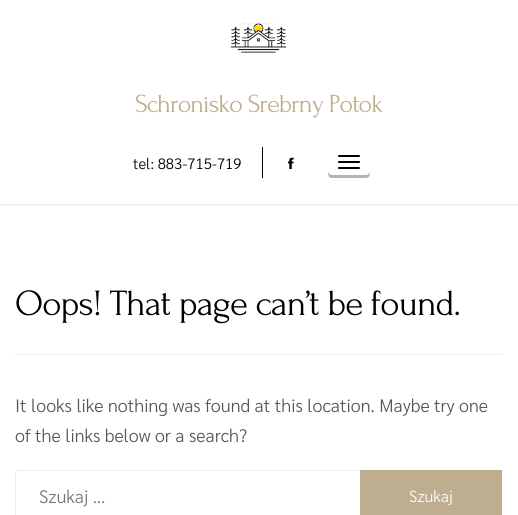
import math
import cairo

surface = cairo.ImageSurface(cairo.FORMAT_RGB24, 518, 515)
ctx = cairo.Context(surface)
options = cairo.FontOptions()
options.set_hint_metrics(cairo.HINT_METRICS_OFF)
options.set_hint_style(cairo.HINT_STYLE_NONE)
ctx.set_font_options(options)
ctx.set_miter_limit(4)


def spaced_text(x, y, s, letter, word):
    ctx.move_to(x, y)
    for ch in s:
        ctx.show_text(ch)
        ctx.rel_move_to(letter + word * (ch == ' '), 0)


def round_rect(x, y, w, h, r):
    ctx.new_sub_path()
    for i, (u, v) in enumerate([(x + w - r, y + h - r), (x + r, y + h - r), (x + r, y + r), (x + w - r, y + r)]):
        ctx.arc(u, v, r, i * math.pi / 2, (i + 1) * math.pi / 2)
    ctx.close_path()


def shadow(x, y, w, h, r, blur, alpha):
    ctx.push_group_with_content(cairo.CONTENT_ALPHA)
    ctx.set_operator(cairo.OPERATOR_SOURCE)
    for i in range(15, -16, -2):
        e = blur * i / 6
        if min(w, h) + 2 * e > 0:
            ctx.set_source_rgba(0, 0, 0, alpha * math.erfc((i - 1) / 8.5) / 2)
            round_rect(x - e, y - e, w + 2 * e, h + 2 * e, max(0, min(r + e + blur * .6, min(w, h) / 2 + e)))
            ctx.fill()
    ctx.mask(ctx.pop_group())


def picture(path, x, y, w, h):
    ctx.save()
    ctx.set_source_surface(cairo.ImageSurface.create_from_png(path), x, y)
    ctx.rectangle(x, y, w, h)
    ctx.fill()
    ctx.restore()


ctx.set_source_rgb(1, 1, 1)
ctx.paint()
ctx.save()
ctx.rectangle(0, 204, 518, 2)
ctx.clip()
ctx.set_source_rgb(0, 0, 0)
shadow(0, 1, 518, 204, 0, 1, 0.1)
ctx.restore()
picture("img1.png", 230, 23, 57, 30)
ctx.select_font_face("Forum")
ctx.set_font_size(26)
ctx.set_source_rgb(0.745, 0.678, 0.557)
spaced_text(135, 112, "Schronisko Srebrny Potok", -1, 0)
ctx.set_source_rgb(0, 0, 0)
ctx.rectangle(262, 147, 1, 31)
ctx.fill()
ctx.select_font_face("Sarabun Light")
ctx.set_font_size(15)
ctx.move_to(133, 169)
ctx.show_text("tel: 883-715-719")
picture("img2.png", 288, 157, 6, 12)
ctx.set_source_rgb(0.702, 0.702, 0.702)
ctx.new_path()
ctx.move_to(328, 171)
ctx.curve_to(328, 179, 330, 178, 338, 178)
ctx.line_to(360, 178)
ctx.curve_to(368, 178, 370, 179, 370, 171)
ctx.curve_to(370, 173, 368, 175, 366, 175)
ctx.line_to(332, 175)
ctx.curve_to(330, 175, 328, 173, 328, 171)
ctx.close_path()
ctx.fill()
ctx.set_source_rgb(0, 0, 0)
round_rect(338, 155, 22, 2, 1)
ctx.fill()
round_rect(338, 161, 22, 2, 1)
ctx.fill()
round_rect(338, 167, 22, 2, 1)
ctx.fill()
ctx.set_source_rgb(0.933, 0.933, 0.933)
ctx.rectangle(15, 354, 488, 1)
ctx.fill()
ctx.select_font_face("Forum")
ctx.set_font_size(37)
ctx.set_source_rgb(0, 0, 0)
spaced_text(15, 315, "Oops! That page can’t be found.", -1, 0)
ctx.select_font_face("Sarabun Light")
ctx.set_font_size(18)
ctx.set_source_rgb(0.337, 0.337, 0.337)
ctx.move_to(15, 412)
ctx.show_text("It looks like nothing was found at this location. Maybe try one")
ctx.move_to(15, 442)
ctx.show_text("of the links below or a search?")
ctx.new_path()
ctx.move_to(19, 470.5)
ctx.line_to(360.5, 470.5)
ctx.line_to(360.5, 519.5)
ctx.line_to(19, 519.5)
ctx.curve_to(17, 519.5, 15.5, 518, 15.5, 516)
ctx.line_to(15.5, 474)
ctx.curve_to(15.5, 472, 17, 470.5, 19, 470.5)
ctx.close_path()
ctx.set_source_rgb(0.933, 0.933, 0.933)
ctx.set_line_width(1)
ctx.stroke()
ctx.set_source_rgb(0.459, 0.459, 0.459)
ctx.move_to(39, 503)
ctx.show_text("Szukaj …")
ctx.set_source_rgb(0.745, 0.678, 0.557)
ctx.rectangle(360, 470, 142, 45)
ctx.fill()
ctx.set_font_size(16)
ctx.set_source_rgb(1, 1, 1)
ctx.move_to(409, 502)
ctx.show_text("Szukaj")
surface.write_to_png("page.png")
